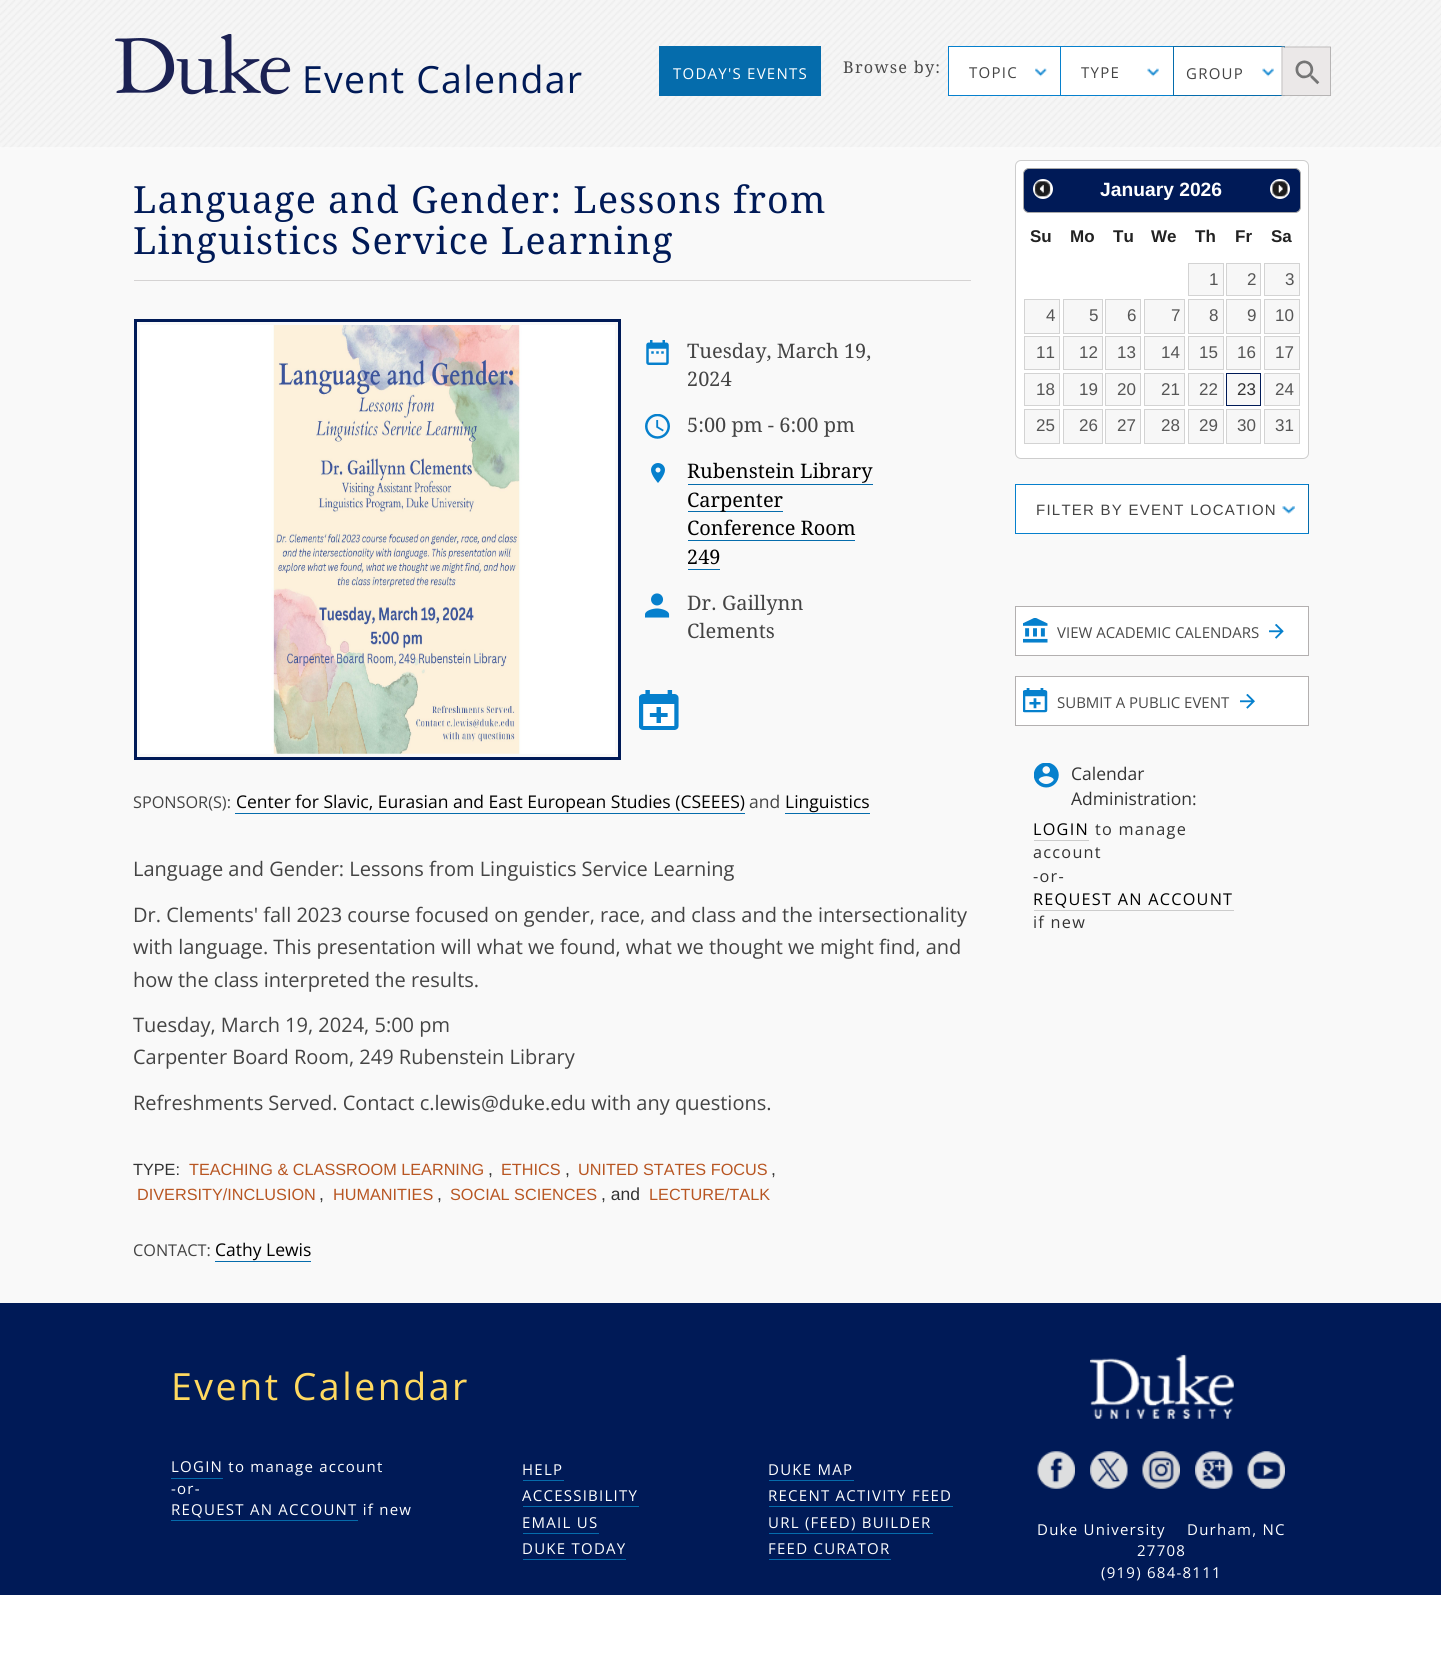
import math
import cairo

surface = cairo.ImageSurface(cairo.FORMAT_RGB24, 1441, 1653)
ctx = cairo.Context(surface)
options = cairo.FontOptions()
options.set_hint_metrics(cairo.HINT_METRICS_OFF)
options.set_hint_style(cairo.HINT_STYLE_NONE)
ctx.set_font_options(options)
ctx.set_miter_limit(4)


def spaced_text(x, y, s, letter, word):
    ctx.move_to(x, y)
    for ch in s:
        ctx.show_text(ch)
        ctx.rel_move_to(letter + word * (ch == ' '), 0)


def round_rect(x, y, w, h, r):
    ctx.new_sub_path()
    for i, (u, v) in enumerate([(x + w - r, y + h - r), (x + r, y + h - r), (x + r, y + r), (x + w - r, y + r)]):
        ctx.arc(u, v, r, i * math.pi / 2, (i + 1) * math.pi / 2)
    ctx.close_path()


def picture(path, x, y, w, h):
    ctx.save()
    ctx.set_source_surface(cairo.ImageSurface.create_from_png(path), x, y)
    ctx.rectangle(x, y, w, h)
    ctx.fill()
    ctx.restore()


ctx.set_source_rgb(1, 1, 1)
ctx.paint()
picture("img1.png", 0, 0, 1441, 148)
picture("img2.png", 115, 34, 176, 61)
ctx.select_font_face("Open Sans")
ctx.set_font_size(37.5)
ctx.set_source_rgb(0, 0.102, 0.341)
spaced_text(302, 93, "Event Calendar", 1.25, 0)
ctx.set_source_rgb(0.02, 0.424, 0.675)
ctx.rectangle(659, 46, 162, 50)
ctx.fill()
ctx.set_font_size(15)
ctx.set_source_rgb(1, 1, 1)
spaced_text(673, 79, "TODAY'S EVENTS", 1.25, 0)
ctx.select_font_face("Droid Serif")
ctx.set_font_size(16.25)
ctx.set_source_rgb(0.29, 0.29, 0.29)
spaced_text(843, 73, "Browse by:", 1.25, 0)
ctx.set_source_rgb(1, 1, 1)
ctx.rectangle(949, 47, 111, 48)
ctx.fill()
ctx.set_source_rgb(0.024, 0.502, 0.804)
ctx.rectangle(948, 46, 225, 1)
ctx.fill()
ctx.rectangle(948, 95, 225, 1)
ctx.fill()
ctx.rectangle(948, 46, 1, 50)
ctx.fill()
ctx.select_font_face("Open Sans")
ctx.set_font_size(15)
ctx.set_source_rgb(0.267, 0.267, 0.267)
spaced_text(969, 78, "TOPIC", 1.25, 0)
picture("img3.png", 1035, 68, 12, 9)
ctx.set_source_rgb(1, 1, 1)
ctx.rectangle(1061, 47, 112, 48)
ctx.fill()
ctx.set_source_rgb(0.024, 0.502, 0.804)
ctx.rectangle(1060, 46, 1, 50)
ctx.fill()
ctx.set_source_rgb(0.267, 0.267, 0.267)
spaced_text(1081, 78, "TYPE", 1.25, 0)
picture("img4.png", 1147, 68, 12, 9)
ctx.set_source_rgb(1, 1, 1)
ctx.rectangle(1173.5, 46.5, 111, 49)
ctx.fill_preserve()
ctx.set_source_rgb(0.02, 0.424, 0.675)
ctx.set_line_width(1)
ctx.stroke()
picture("img5.png", 1262, 68, 12, 9)
ctx.set_source_rgb(0.267, 0.267, 0.267)
spaced_text(1186, 79, "GROUP", 1.25, 0)
picture("img6.png", 1281, 46, 50, 50)
ctx.set_source_rgb(0.976, 0.976, 0.976)
ctx.rectangle(0, 148, 1441, 1155)
ctx.fill()
ctx.select_font_face("Droid Serif")
ctx.set_font_size(37.5)
ctx.set_source_rgb(0, 0.102, 0.341)
spaced_text(133, 213, "Language and Gender: Lessons from", 1.25, 0)
spaced_text(133, 254, "Linguistics Service Learning", 1.25, 0)
ctx.set_source_rgb(0.835, 0.827, 0.827)
ctx.rectangle(134, 280, 837, 1)
ctx.fill()
ctx.rectangle(135.5, 320.5, 484, 438)
ctx.set_source_rgb(0, 0.102, 0.341)
ctx.set_line_width(3)
ctx.stroke()
picture("img7.png", 140, 325, 475, 429)
picture("img8.png", 646, 340, 23, 25)
ctx.set_font_size(20)
ctx.set_source_rgb(0.267, 0.267, 0.267)
ctx.move_to(687, 358)
ctx.show_text("Tuesday, March 19,")
ctx.move_to(687, 386)
ctx.show_text("2024")
picture("img9.png", 645, 414, 25, 25)
ctx.move_to(687, 432)
ctx.show_text("5:00 pm - 6:00 pm")
picture("img10.png", 651, 463, 14, 20)
ctx.set_source_rgb(0, 0, 0)
ctx.move_to(687, 478)
ctx.show_text("Rubenstein Library")
ctx.set_source_rgb(0.02, 0.424, 0.675)
ctx.rectangle(688, 484, 185, 1)
ctx.fill()
ctx.rectangle(688, 511, 95, 1)
ctx.fill()
ctx.set_source_rgb(0, 0, 0)
ctx.move_to(687, 507)
ctx.show_text("Carpenter")
ctx.move_to(687, 535)
ctx.show_text("Conference Room")
ctx.set_source_rgb(0.02, 0.424, 0.675)
ctx.rectangle(688, 540, 167, 1)
ctx.fill()
ctx.set_source_rgb(0, 0, 0)
ctx.move_to(687, 564)
ctx.show_text("249")
ctx.set_source_rgb(0.02, 0.424, 0.675)
ctx.rectangle(688, 569, 32, 1)
ctx.fill()
picture("img11.png", 645, 593, 25, 25)
ctx.set_source_rgb(0.267, 0.267, 0.267)
ctx.move_to(687, 610)
ctx.show_text("Dr. Gaillynn")
ctx.move_to(687, 638)
ctx.show_text("Clements")
picture("img12.png", 639, 690, 40, 40)
ctx.select_font_face("Open Sans")
ctx.set_font_size(16.25)
ctx.move_to(133, 808)
ctx.show_text("SPONSOR(S):")
ctx.set_font_size(17.5)
ctx.set_source_rgb(0, 0, 0)
ctx.move_to(236, 808)
ctx.show_text("Center for Slavic, Eurasian and East European Studies (CSEEES)")
ctx.set_source_rgb(0.02, 0.424, 0.675)
ctx.rectangle(235, 813, 510, 1)
ctx.fill()
ctx.set_source_rgb(0.267, 0.267, 0.267)
ctx.move_to(749, 808)
ctx.show_text("and")
ctx.set_source_rgb(0, 0, 0)
ctx.move_to(785, 808)
ctx.show_text("Linguistics")
ctx.set_source_rgb(0.02, 0.424, 0.675)
ctx.rectangle(785, 813, 85, 1)
ctx.fill()
ctx.set_font_size(20)
ctx.set_source_rgb(0.267, 0.267, 0.267)
ctx.move_to(133, 876)
ctx.show_text("Language and Gender: Lessons from Linguistics Service Learning")
ctx.move_to(133, 922)
ctx.show_text("Dr. Clements' fall 2023 course focused on gender, race, and class and the intersectionality")
ctx.move_to(133, 954)
ctx.show_text("with language. This presentation will what we found, what we thought we might find, and")
ctx.move_to(133, 987)
ctx.show_text("how the class interpreted the results.")
ctx.move_to(133, 1032)
ctx.show_text("Tuesday, March 19, 2024, 5:00 pm")
ctx.move_to(133, 1064)
ctx.show_text("Carpenter Board Room, 249 Rubenstein Library")
ctx.move_to(133, 1110)
ctx.show_text("Refreshments Served. Contact c.lewis@duke.edu with any questions.")
ctx.select_font_face("Liberation Sans")
ctx.set_font_size(16.25)
ctx.set_source_rgb(0.2, 0.2, 0.2)
ctx.move_to(133, 1175)
ctx.show_text("TYPE:")
ctx.set_source_rgb(0.722, 0.337, 0.133)
ctx.move_to(189, 1175)
ctx.show_text("TEACHING & CLASSROOM LEARNING")
ctx.set_font_size(17.5)
ctx.set_source_rgb(0.2, 0.2, 0.2)
ctx.move_to(488, 1175)
ctx.show_text(",")
ctx.set_font_size(16.25)
ctx.set_source_rgb(0.722, 0.337, 0.133)
ctx.move_to(501, 1175)
ctx.show_text("ETHICS")
ctx.set_font_size(17.5)
ctx.set_source_rgb(0.2, 0.2, 0.2)
ctx.move_to(565, 1175)
ctx.show_text(",")
ctx.set_font_size(16.25)
ctx.set_source_rgb(0.722, 0.337, 0.133)
ctx.move_to(578, 1175)
ctx.show_text("UNITED STATES FOCUS")
ctx.set_font_size(17.5)
ctx.set_source_rgb(0.2, 0.2, 0.2)
ctx.move_to(771, 1175)
ctx.show_text(",")
ctx.set_font_size(16.25)
ctx.set_source_rgb(0.722, 0.337, 0.133)
ctx.move_to(137, 1200)
ctx.show_text("DIVERSITY/INCLUSION")
ctx.set_font_size(17.5)
ctx.set_source_rgb(0.2, 0.2, 0.2)
ctx.move_to(319, 1200)
ctx.show_text(",")
ctx.set_font_size(16.25)
ctx.set_source_rgb(0.722, 0.337, 0.133)
ctx.move_to(333, 1200)
ctx.show_text("HUMANITIES")
ctx.set_font_size(17.5)
ctx.set_source_rgb(0.2, 0.2, 0.2)
ctx.move_to(437, 1200)
ctx.show_text(",")
ctx.set_font_size(16.25)
ctx.set_source_rgb(0.722, 0.337, 0.133)
ctx.move_to(450, 1200)
ctx.show_text("SOCIAL SCIENCES")
ctx.set_font_size(17.5)
ctx.set_source_rgb(0.2, 0.2, 0.2)
ctx.move_to(601, 1200)
ctx.show_text(", and")
ctx.set_font_size(16.25)
ctx.set_source_rgb(0.722, 0.337, 0.133)
ctx.move_to(649, 1200)
ctx.show_text("LECTURE/TALK")
ctx.select_font_face("Open Sans")
ctx.set_source_rgb(0.267, 0.267, 0.267)
ctx.move_to(133, 1256)
ctx.show_text("CONTACT:")
ctx.set_font_size(17.5)
ctx.set_source_rgb(0, 0, 0)
ctx.move_to(215, 1256)
ctx.show_text("Cathy Lewis")
ctx.set_source_rgb(0.02, 0.424, 0.675)
ctx.rectangle(215, 1261, 96, 1)
ctx.fill()
ctx.set_source_rgb(1, 1, 1)
round_rect(1015.5, 160.5, 293, 298, 5.5)
ctx.fill_preserve()
ctx.set_source_rgb(0.804, 0.804, 0.804)
ctx.set_line_width(1)
ctx.stroke()
ctx.set_source_rgb(0, 0.102, 0.341)
round_rect(1023.5, 168.5, 277, 44, 5.5)
ctx.fill_preserve()
ctx.set_source_rgb(0.667, 0.667, 0.667)
ctx.stroke()
ctx.set_source_rgb(1, 1, 1)
ctx.arc(1043, 189, 10, 0, 2 * math.pi)
ctx.fill()
picture("img13.png", 1034, 181, 17, 16)
ctx.select_font_face("Liberation Sans", cairo.FONT_SLANT_NORMAL, cairo.FONT_WEIGHT_BOLD)
ctx.set_font_size(19.25)
ctx.move_to(1100, 196)
ctx.show_text("January 2026")
ctx.new_path()
ctx.arc(1280, 189, 10, 0, 2 * math.pi)
ctx.fill()
picture("img14.png", 1272, 181, 16, 16)
ctx.set_font_size(17)
ctx.set_source_rgb(0.133, 0.133, 0.133)
ctx.move_to(1030, 242)
ctx.show_text("Su")
ctx.move_to(1070, 242)
ctx.show_text("Mo")
ctx.move_to(1113, 242)
ctx.show_text("Tu")
ctx.move_to(1151, 242)
ctx.show_text("We")
ctx.move_to(1195, 242)
ctx.show_text("Th")
ctx.move_to(1235, 242)
ctx.show_text("Fr")
ctx.move_to(1271, 242)
ctx.show_text("Sa")
ctx.set_source_rgb(0.965, 0.965, 0.965)
ctx.rectangle(1188.5, 263.5, 35, 32)
ctx.fill_preserve()
ctx.set_source_rgb(0.827, 0.827, 0.827)
ctx.stroke()
ctx.select_font_face("Liberation Sans")
ctx.set_source_rgb(0.333, 0.333, 0.333)
ctx.move_to(1209, 285)
ctx.show_text("1")
ctx.set_source_rgb(0.965, 0.965, 0.965)
ctx.rectangle(1226.5, 263.5, 34, 32)
ctx.fill_preserve()
ctx.set_source_rgb(0.827, 0.827, 0.827)
ctx.stroke()
ctx.set_source_rgb(0.333, 0.333, 0.333)
ctx.move_to(1247, 285)
ctx.show_text("2")
ctx.set_source_rgb(0.965, 0.965, 0.965)
ctx.rectangle(1264.5, 263.5, 35, 32)
ctx.fill_preserve()
ctx.set_source_rgb(0.827, 0.827, 0.827)
ctx.stroke()
ctx.set_source_rgb(0.333, 0.333, 0.333)
ctx.move_to(1285, 285)
ctx.show_text("3")
ctx.set_source_rgb(0.965, 0.965, 0.965)
ctx.rectangle(1024.5, 299.5, 35, 34)
ctx.fill_preserve()
ctx.set_source_rgb(0.827, 0.827, 0.827)
ctx.stroke()
ctx.set_source_rgb(0.333, 0.333, 0.333)
ctx.move_to(1046, 321)
ctx.show_text("4")
ctx.set_source_rgb(0.965, 0.965, 0.965)
ctx.rectangle(1063.5, 299.5, 39, 34)
ctx.fill_preserve()
ctx.set_source_rgb(0.827, 0.827, 0.827)
ctx.stroke()
ctx.set_source_rgb(0.333, 0.333, 0.333)
ctx.move_to(1089, 321)
ctx.show_text("5")
ctx.set_source_rgb(0.965, 0.965, 0.965)
ctx.rectangle(1105.5, 299.5, 35, 34)
ctx.fill_preserve()
ctx.set_source_rgb(0.827, 0.827, 0.827)
ctx.stroke()
ctx.set_source_rgb(0.333, 0.333, 0.333)
ctx.move_to(1127, 321)
ctx.show_text("6")
ctx.set_source_rgb(0.965, 0.965, 0.965)
ctx.rectangle(1144.5, 299.5, 40, 34)
ctx.fill_preserve()
ctx.set_source_rgb(0.827, 0.827, 0.827)
ctx.stroke()
ctx.set_source_rgb(0.333, 0.333, 0.333)
ctx.move_to(1171, 321)
ctx.show_text("7")
ctx.set_source_rgb(0.965, 0.965, 0.965)
ctx.rectangle(1188.5, 299.5, 35, 34)
ctx.fill_preserve()
ctx.set_source_rgb(0.827, 0.827, 0.827)
ctx.stroke()
ctx.set_source_rgb(0.333, 0.333, 0.333)
ctx.move_to(1209, 321)
ctx.show_text("8")
ctx.set_source_rgb(0.965, 0.965, 0.965)
ctx.rectangle(1226.5, 299.5, 34, 34)
ctx.fill_preserve()
ctx.set_source_rgb(0.827, 0.827, 0.827)
ctx.stroke()
ctx.set_source_rgb(0.333, 0.333, 0.333)
ctx.move_to(1247, 321)
ctx.show_text("9")
ctx.set_source_rgb(0.965, 0.965, 0.965)
ctx.rectangle(1264.5, 299.5, 35, 34)
ctx.fill_preserve()
ctx.set_source_rgb(0.827, 0.827, 0.827)
ctx.stroke()
ctx.set_source_rgb(0.333, 0.333, 0.333)
ctx.move_to(1275, 321)
ctx.show_text("10")
ctx.set_source_rgb(0.965, 0.965, 0.965)
ctx.rectangle(1024.5, 336.5, 35, 33)
ctx.fill_preserve()
ctx.set_source_rgb(0.827, 0.827, 0.827)
ctx.stroke()
ctx.set_source_rgb(0.333, 0.333, 0.333)
ctx.move_to(1036, 358)
ctx.show_text("11")
ctx.set_source_rgb(0.965, 0.965, 0.965)
ctx.rectangle(1063.5, 336.5, 39, 33)
ctx.fill_preserve()
ctx.set_source_rgb(0.827, 0.827, 0.827)
ctx.stroke()
ctx.set_source_rgb(0.333, 0.333, 0.333)
ctx.move_to(1079, 358)
ctx.show_text("12")
ctx.set_source_rgb(0.965, 0.965, 0.965)
ctx.rectangle(1105.5, 336.5, 35, 33)
ctx.fill_preserve()
ctx.set_source_rgb(0.827, 0.827, 0.827)
ctx.stroke()
ctx.set_source_rgb(0.333, 0.333, 0.333)
ctx.move_to(1117, 358)
ctx.show_text("13")
ctx.set_source_rgb(0.965, 0.965, 0.965)
ctx.rectangle(1144.5, 336.5, 40, 33)
ctx.fill_preserve()
ctx.set_source_rgb(0.827, 0.827, 0.827)
ctx.stroke()
ctx.set_source_rgb(0.333, 0.333, 0.333)
ctx.move_to(1161, 358)
ctx.show_text("14")
ctx.set_source_rgb(0.965, 0.965, 0.965)
ctx.rectangle(1188.5, 336.5, 35, 33)
ctx.fill_preserve()
ctx.set_source_rgb(0.827, 0.827, 0.827)
ctx.stroke()
ctx.set_source_rgb(0.333, 0.333, 0.333)
ctx.move_to(1199, 358)
ctx.show_text("15")
ctx.set_source_rgb(0.965, 0.965, 0.965)
ctx.rectangle(1226.5, 336.5, 34, 33)
ctx.fill_preserve()
ctx.set_source_rgb(0.827, 0.827, 0.827)
ctx.stroke()
ctx.set_source_rgb(0.333, 0.333, 0.333)
ctx.move_to(1237, 358)
ctx.show_text("16")
ctx.set_source_rgb(0.965, 0.965, 0.965)
ctx.rectangle(1264.5, 336.5, 35, 33)
ctx.fill_preserve()
ctx.set_source_rgb(0.827, 0.827, 0.827)
ctx.stroke()
ctx.set_source_rgb(0.333, 0.333, 0.333)
ctx.move_to(1275, 358)
ctx.show_text("17")
ctx.set_source_rgb(0.965, 0.965, 0.965)
ctx.rectangle(1024.5, 373.5, 35, 32)
ctx.fill_preserve()
ctx.set_source_rgb(0.827, 0.827, 0.827)
ctx.stroke()
ctx.set_source_rgb(0.333, 0.333, 0.333)
ctx.move_to(1036, 395)
ctx.show_text("18")
ctx.set_source_rgb(0.965, 0.965, 0.965)
ctx.rectangle(1063.5, 373.5, 39, 32)
ctx.fill_preserve()
ctx.set_source_rgb(0.827, 0.827, 0.827)
ctx.stroke()
ctx.set_source_rgb(0.333, 0.333, 0.333)
ctx.move_to(1079, 395)
ctx.show_text("19")
ctx.set_source_rgb(0.965, 0.965, 0.965)
ctx.rectangle(1105.5, 373.5, 35, 32)
ctx.fill_preserve()
ctx.set_source_rgb(0.827, 0.827, 0.827)
ctx.stroke()
ctx.set_source_rgb(0.333, 0.333, 0.333)
ctx.move_to(1117, 395)
ctx.show_text("20")
ctx.set_source_rgb(0.965, 0.965, 0.965)
ctx.rectangle(1144.5, 373.5, 40, 32)
ctx.fill_preserve()
ctx.set_source_rgb(0.827, 0.827, 0.827)
ctx.stroke()
ctx.set_source_rgb(0.333, 0.333, 0.333)
ctx.move_to(1161, 395)
ctx.show_text("21")
ctx.set_source_rgb(0.965, 0.965, 0.965)
ctx.rectangle(1188.5, 373.5, 35, 32)
ctx.fill_preserve()
ctx.set_source_rgb(0.827, 0.827, 0.827)
ctx.stroke()
ctx.set_source_rgb(0.333, 0.333, 0.333)
ctx.move_to(1199, 395)
ctx.show_text("22")
ctx.set_source_rgb(0.965, 0.965, 0.965)
ctx.rectangle(1226.5, 373.5, 34, 32)
ctx.fill_preserve()
ctx.set_source_rgb(0, 0.102, 0.341)
ctx.stroke()
ctx.set_source_rgb(0.2, 0.2, 0.2)
ctx.move_to(1237, 395)
ctx.show_text("23")
ctx.set_source_rgb(0.965, 0.965, 0.965)
ctx.rectangle(1264.5, 373.5, 35, 32)
ctx.fill_preserve()
ctx.set_source_rgb(0.827, 0.827, 0.827)
ctx.stroke()
ctx.set_source_rgb(0.333, 0.333, 0.333)
ctx.move_to(1275, 395)
ctx.show_text("24")
ctx.set_source_rgb(0.965, 0.965, 0.965)
ctx.rectangle(1024.5, 409.5, 35, 34)
ctx.fill_preserve()
ctx.set_source_rgb(0.827, 0.827, 0.827)
ctx.stroke()
ctx.set_source_rgb(0.333, 0.333, 0.333)
ctx.move_to(1036, 431)
ctx.show_text("25")
ctx.set_source_rgb(0.965, 0.965, 0.965)
ctx.rectangle(1063.5, 409.5, 39, 34)
ctx.fill_preserve()
ctx.set_source_rgb(0.827, 0.827, 0.827)
ctx.stroke()
ctx.set_source_rgb(0.333, 0.333, 0.333)
ctx.move_to(1079, 431)
ctx.show_text("26")
ctx.set_source_rgb(0.965, 0.965, 0.965)
ctx.rectangle(1105.5, 409.5, 35, 34)
ctx.fill_preserve()
ctx.set_source_rgb(0.827, 0.827, 0.827)
ctx.stroke()
ctx.set_source_rgb(0.333, 0.333, 0.333)
ctx.move_to(1117, 431)
ctx.show_text("27")
ctx.set_source_rgb(0.965, 0.965, 0.965)
ctx.rectangle(1144.5, 409.5, 40, 34)
ctx.fill_preserve()
ctx.set_source_rgb(0.827, 0.827, 0.827)
ctx.stroke()
ctx.set_source_rgb(0.333, 0.333, 0.333)
ctx.move_to(1161, 431)
ctx.show_text("28")
ctx.set_source_rgb(0.965, 0.965, 0.965)
ctx.rectangle(1188.5, 409.5, 35, 34)
ctx.fill_preserve()
ctx.set_source_rgb(0.827, 0.827, 0.827)
ctx.stroke()
ctx.set_source_rgb(0.333, 0.333, 0.333)
ctx.move_to(1199, 431)
ctx.show_text("29")
ctx.set_source_rgb(0.965, 0.965, 0.965)
ctx.rectangle(1226.5, 409.5, 34, 34)
ctx.fill_preserve()
ctx.set_source_rgb(0.827, 0.827, 0.827)
ctx.stroke()
ctx.set_source_rgb(0.333, 0.333, 0.333)
ctx.move_to(1237, 431)
ctx.show_text("30")
ctx.set_source_rgb(0.965, 0.965, 0.965)
ctx.rectangle(1264.5, 409.5, 35, 34)
ctx.fill_preserve()
ctx.set_source_rgb(0.827, 0.827, 0.827)
ctx.stroke()
ctx.set_source_rgb(0.333, 0.333, 0.333)
ctx.move_to(1275, 431)
ctx.show_text("31")
ctx.set_source_rgb(1, 1, 1)
ctx.rectangle(1016, 485, 292, 48)
ctx.fill()
ctx.set_source_rgb(0.024, 0.502, 0.804)
ctx.rectangle(1015, 484, 294, 1)
ctx.fill()
ctx.set_source_rgb(0.02, 0.424, 0.675)
ctx.rectangle(1308, 484, 1, 50)
ctx.fill()
ctx.set_source_rgb(0.024, 0.502, 0.804)
ctx.rectangle(1015, 533, 294, 1)
ctx.fill()
ctx.rectangle(1015, 484, 1, 50)
ctx.fill()
ctx.set_font_size(15)
ctx.set_source_rgb(0.267, 0.267, 0.267)
spaced_text(1036, 515, "FILTER BY EVENT LOCATION", 1.25, 0)
picture("img15.png", 1282, 506, 13, 8)
ctx.set_source_rgb(1, 1, 1)
ctx.rectangle(1015.5, 606.5, 293, 49)
ctx.fill_preserve()
ctx.set_source_rgb(0.702, 0.69, 0.69)
ctx.stroke()
picture("img16.png", 1023, 618, 25, 25)
ctx.select_font_face("Open Sans")
ctx.set_source_rgb(0.29, 0.29, 0.29)
ctx.move_to(1057, 638)
ctx.show_text("VIEW ACADEMIC CALENDARS")
picture("img17.png", 1269, 624, 15, 15)
ctx.set_source_rgb(1, 1, 1)
ctx.rectangle(1015.5, 676.5, 293, 49)
ctx.fill_preserve()
ctx.set_source_rgb(0.702, 0.69, 0.69)
ctx.stroke()
picture("img18.png", 1023, 688, 25, 25)
ctx.set_source_rgb(0.29, 0.29, 0.29)
ctx.move_to(1057, 708)
ctx.show_text("SUBMIT A PUBLIC EVENT")
picture("img19.png", 1240, 694, 15, 15)
picture("img20.png", 1034, 763, 25, 25)
ctx.set_font_size(17.5)
ctx.set_source_rgb(0.2, 0.2, 0.2)
ctx.move_to(1071, 780)
ctx.show_text("Calendar")
ctx.move_to(1071, 805)
ctx.show_text("Administration:")
ctx.set_font_size(16.25)
ctx.set_source_rgb(0, 0, 0)
spaced_text(1033, 835, "LOGIN", 1.25, 0)
ctx.set_source_rgb(0.8, 0.8, 0.8)
ctx.rectangle(1034, 840, 55, 1)
ctx.fill()
ctx.set_source_rgb(0.2, 0.2, 0.2)
spaced_text(1095, 835, "to manage", 1.25, 0)
spaced_text(1033, 858, "account", 1.25, 0)
spaced_text(1033, 882, "-or-", 1.25, 0)
ctx.set_source_rgb(0, 0, 0)
spaced_text(1033, 905, "REQUEST AN ACCOUNT", 1.25, 0)
ctx.set_source_rgb(0.8, 0.8, 0.8)
ctx.rectangle(1034, 910, 200, 1)
ctx.fill()
ctx.set_source_rgb(0.2, 0.2, 0.2)
spaced_text(1033, 928, "if new", 1.25, 0)
ctx.set_source_rgb(0, 0.102, 0.341)
ctx.rectangle(0, 1303, 1441, 292)
ctx.fill()
ctx.set_font_size(37.5)
ctx.set_source_rgb(1, 0.851, 0.376)
spaced_text(171, 1400, "Event Calendar", 2.5, 0)
ctx.set_font_size(15)
ctx.set_source_rgb(1, 1, 1)
spaced_text(171, 1472, "LOGIN to manage account", 1.25, 0)
ctx.set_source_rgb(0.02, 0.424, 0.675)
ctx.rectangle(171, 1478, 52, 1)
ctx.fill()
ctx.set_source_rgb(1, 1, 1)
spaced_text(171, 1494, "-or-", 1.25, 0)
spaced_text(171, 1515, "REQUEST AN ACCOUNT if new", 1.25, 0)
ctx.set_source_rgb(0.02, 0.424, 0.675)
ctx.rectangle(171, 1520, 187, 1)
ctx.fill()
ctx.set_source_rgb(1, 1, 1)
spaced_text(522, 1475, "HELP", 1.25, 0)
ctx.set_source_rgb(0.02, 0.424, 0.675)
ctx.rectangle(523, 1480, 41, 1)
ctx.fill()
ctx.set_source_rgb(1, 1, 1)
spaced_text(522, 1501, "ACCESSIBILITY", 1.25, 0)
ctx.set_source_rgb(0.02, 0.424, 0.675)
ctx.rectangle(523, 1506, 116, 1)
ctx.fill()
ctx.set_source_rgb(1, 1, 1)
spaced_text(522, 1528, "EMAIL US", 1.25, 0)
ctx.set_source_rgb(0.02, 0.424, 0.675)
ctx.rectangle(523, 1533, 76, 1)
ctx.fill()
ctx.set_source_rgb(1, 1, 1)
spaced_text(522, 1554, "DUKE TODAY", 1.25, 0)
ctx.set_source_rgb(0.02, 0.424, 0.675)
ctx.rectangle(523, 1559, 103, 1)
ctx.fill()
ctx.set_source_rgb(1, 1, 1)
spaced_text(768, 1475, "DUKE MAP", 1.25, 0)
ctx.set_source_rgb(0.02, 0.424, 0.675)
ctx.rectangle(769, 1480, 85, 1)
ctx.fill()
ctx.set_source_rgb(1, 1, 1)
spaced_text(768, 1501, "RECENT ACTIVITY FEED", 1.25, 0)
ctx.set_source_rgb(0.02, 0.424, 0.675)
ctx.rectangle(769, 1506, 184, 1)
ctx.fill()
ctx.set_source_rgb(1, 1, 1)
spaced_text(768, 1528, "URL (FEED) BUILDER", 1.25, 0)
ctx.set_source_rgb(0.02, 0.424, 0.675)
ctx.rectangle(769, 1533, 164, 1)
ctx.fill()
ctx.set_source_rgb(1, 1, 1)
spaced_text(768, 1554, "FEED CURATOR", 1.25, 0)
ctx.set_source_rgb(0.02, 0.424, 0.675)
ctx.rectangle(769, 1559, 122, 1)
ctx.fill()
picture("img21.png", 1090, 1354, 144, 65)
picture("img22.png", 1037, 1451, 38, 38)
picture("img23.png", 1090, 1451, 38, 38)
picture("img24.png", 1142, 1451, 38, 38)
picture("img25.png", 1195, 1451, 38, 38)
picture("img26.png", 1247, 1451, 38, 38)
ctx.set_source_rgb(1, 1, 1)
spaced_text(1037, 1535, "Duke University", 1.25, 0)
spaced_text(1187, 1535, "Durham, NC", 1.25, 0)
spaced_text(1137, 1556, "27708", 1.25, 0)
spaced_text(1101, 1578, "(919) 684-8111", 1.25, 0)
surface.write_to_png("page.png")
